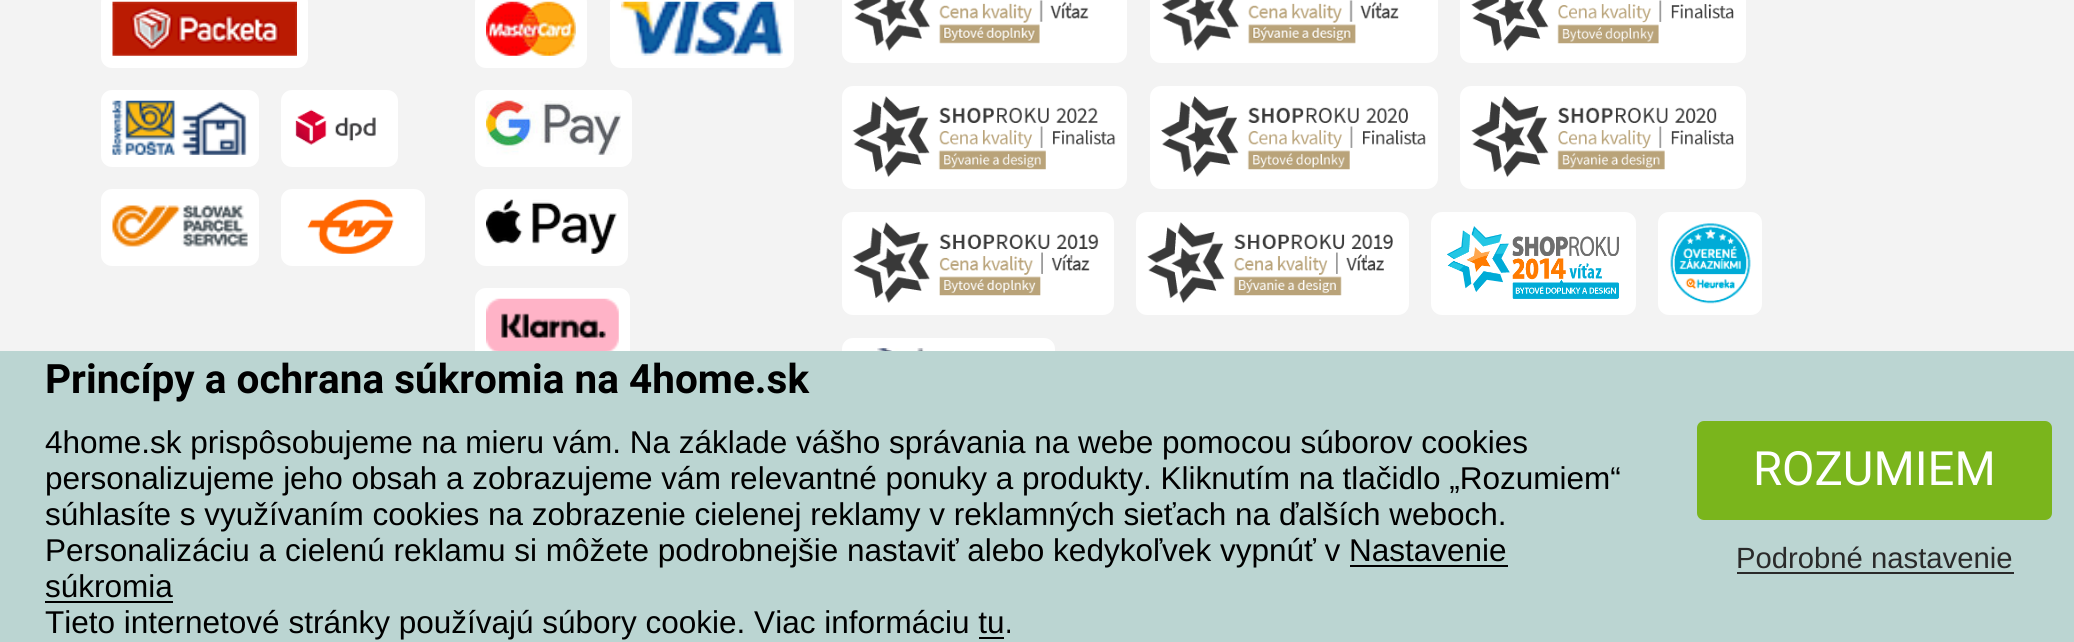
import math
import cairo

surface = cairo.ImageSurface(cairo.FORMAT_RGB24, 2074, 642)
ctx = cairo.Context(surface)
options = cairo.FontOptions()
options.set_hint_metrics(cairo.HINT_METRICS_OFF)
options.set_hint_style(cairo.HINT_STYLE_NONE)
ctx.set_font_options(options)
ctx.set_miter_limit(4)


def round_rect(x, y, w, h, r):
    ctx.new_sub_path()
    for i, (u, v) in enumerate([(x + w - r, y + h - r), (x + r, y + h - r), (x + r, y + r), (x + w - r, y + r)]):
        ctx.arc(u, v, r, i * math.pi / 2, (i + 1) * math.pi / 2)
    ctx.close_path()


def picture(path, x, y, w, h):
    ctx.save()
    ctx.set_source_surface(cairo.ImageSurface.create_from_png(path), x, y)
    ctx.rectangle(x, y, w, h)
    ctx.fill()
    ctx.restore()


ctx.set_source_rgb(0.953, 0.953, 0.953)
ctx.paint()
ctx.set_source_rgb(1, 1, 1)
round_rect(101, -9, 207, 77, 11)
ctx.fill()
picture("img1.png", 112, 1, 185, 55)
round_rect(101, 90, 158, 77, 11)
ctx.fill()
picture("img2.png", 112, 100, 135, 55)
round_rect(281, 90, 117, 77, 11)
ctx.fill()
picture("img3.png", 295, 109, 81, 36)
round_rect(101, 189, 158, 77, 11)
ctx.fill()
picture("img4.png", 112, 205, 136, 42)
round_rect(281, 189, 144, 77, 11)
ctx.fill()
picture("img5.png", 307, 199, 87, 55)
round_rect(475, -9, 112, 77, 11)
ctx.fill()
picture("img6.png", 486, 1, 90, 55)
round_rect(610, -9, 184, 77, 11)
ctx.fill()
picture("img7.png", 621, 1, 162, 55)
round_rect(475, 90, 157, 77, 11)
ctx.fill()
picture("img8.png", 486, 100, 135, 55)
round_rect(475, 189, 153, 77, 11)
ctx.fill()
picture("img9.png", 486, 199, 131, 55)
round_rect(475, 288, 155, 77, 11)
ctx.fill()
picture("img10.png", 486, 298, 133, 53)
round_rect(842, -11, 285, 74, 11)
ctx.fill()
picture("img11.png", 853, 0, 236, 52)
round_rect(1150, -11, 288, 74, 11)
ctx.fill()
picture("img12.png", 1162, 0, 237, 51)
round_rect(1460, -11, 286, 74, 11)
ctx.fill()
picture("img13.png", 1471, 0, 263, 52)
round_rect(842, 86, 285, 103, 11)
ctx.fill()
picture("img14.png", 852, 96, 264, 82)
round_rect(1150, 86, 288, 103, 11)
ctx.fill()
picture("img15.png", 1161, 96, 265, 81)
round_rect(1460, 86, 286, 103, 11)
ctx.fill()
picture("img16.png", 1471, 96, 263, 82)
round_rect(842, 212, 272, 103, 11)
ctx.fill()
picture("img17.png", 852, 222, 247, 81)
round_rect(1136, 212, 273, 103, 11)
ctx.fill()
picture("img18.png", 1147, 222, 246, 82)
round_rect(1431, 212, 205, 103, 11)
ctx.fill()
picture("img19.png", 1447, 226, 172, 73)
round_rect(1658, 212, 104, 103, 11)
ctx.fill()
picture("img20.png", 1670, 223, 81, 81)
round_rect(842, 338, 213, 85, 11)
ctx.fill()
picture("img21.png", 852, 348, 192, 3)
ctx.set_source_rgb(0.733, 0.835, 0.824)
ctx.rectangle(0, 351, 2074, 291)
ctx.fill()
ctx.select_font_face("Roboto", cairo.FONT_SLANT_NORMAL, cairo.FONT_WEIGHT_BOLD)
ctx.set_font_size(40.5)
ctx.set_source_rgb(0, 0, 0)
ctx.move_to(45, 393)
ctx.show_text("Princípy a ochrana súkromia na 4home.sk")
ctx.select_font_face("Liberation Sans")
ctx.set_font_size(31.5)
ctx.move_to(45, 453)
ctx.show_text("4home.sk prispôsobujeme na mieru vám. Na základe vášho správania na webe pomocou súborov cookies")
ctx.move_to(45, 489)
ctx.show_text("personalizujeme jeho obsah a zobrazujeme vám relevantné ponuky a produkty. Kliknutím na tlačidlo „Rozumiem“")
ctx.move_to(45, 525)
ctx.show_text("súhlasíte s využívaním cookies na zobrazenie cielenej reklamy v reklamných sieťach na ďalších weboch.")
ctx.move_to(45, 561)
ctx.show_text("Personalizáciu a cielenú reklamu si môžete podrobnejšie nastaviť alebo kedykoľvek vypnúť v Nastavenie")
ctx.move_to(45, 597)
ctx.show_text("súkromia")
ctx.rectangle(1350, 565, 158, 2)
ctx.fill()
ctx.rectangle(45, 601, 128, 2)
ctx.fill()
ctx.move_to(45, 633)
ctx.show_text("Tieto internetové stránky používajú súbory cookie. Viac informáciu tu.")
ctx.rectangle(979, 637, 25, 2)
ctx.fill()
ctx.set_source_rgb(0.478, 0.71, 0.11)
round_rect(1697, 421, 355, 99, 7)
ctx.fill()
ctx.select_font_face("Roboto")
ctx.set_font_size(47.25)
ctx.set_source_rgb(1, 1, 1)
ctx.move_to(1753, 485)
ctx.show_text("ROZUMIEM")
ctx.select_font_face("Liberation Sans")
ctx.set_font_size(29.25)
ctx.set_source_rgb(0.165, 0.165, 0.165)
ctx.move_to(1736, 568)
ctx.show_text("Podrobné nastavenie")
ctx.rectangle(1737, 572, 277, 2)
ctx.fill()
surface.write_to_png("page.png")
